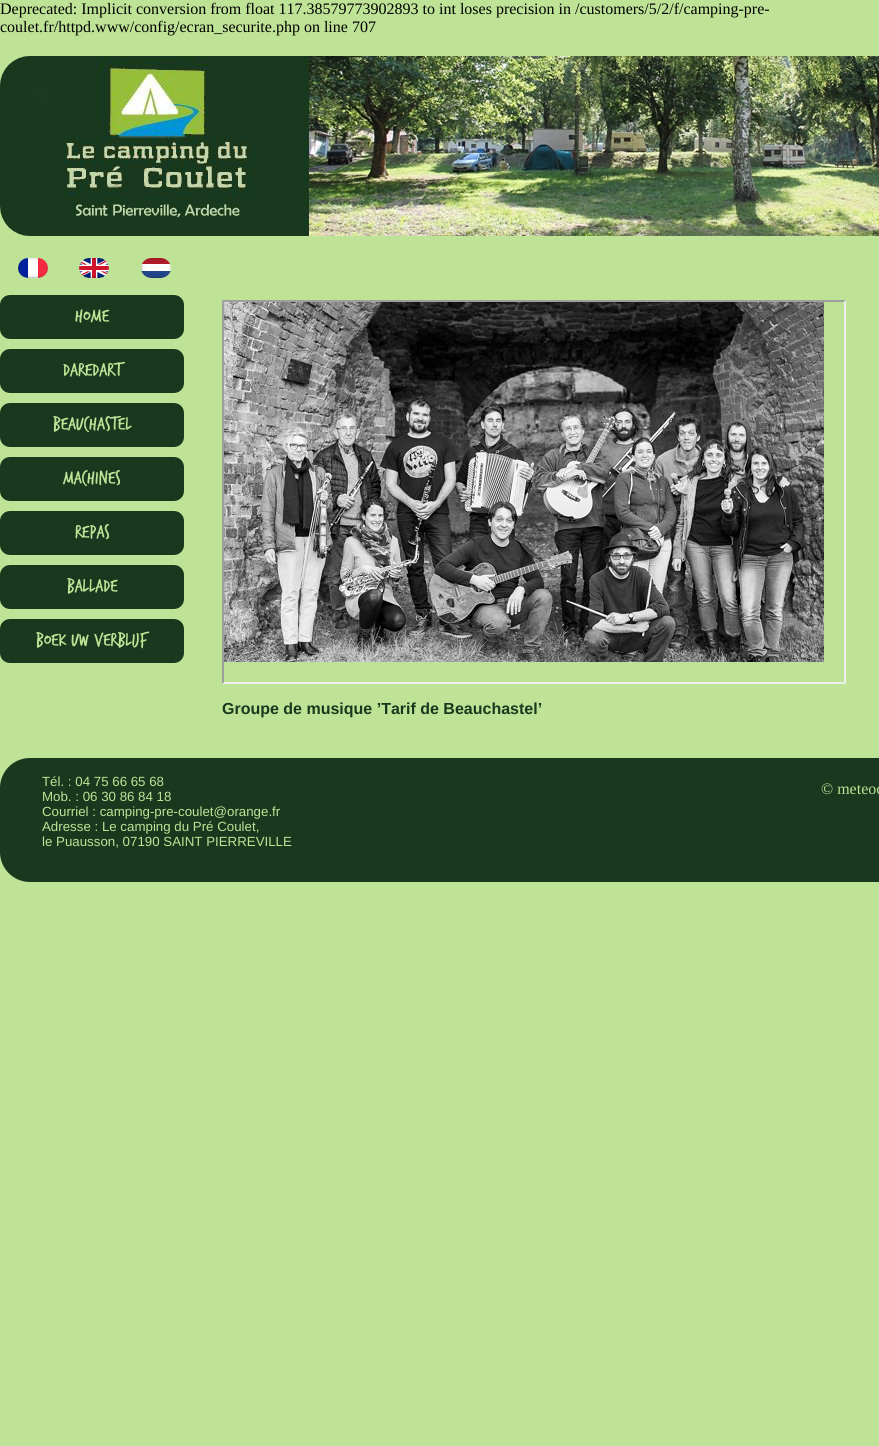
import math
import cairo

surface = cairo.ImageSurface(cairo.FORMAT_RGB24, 879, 1446)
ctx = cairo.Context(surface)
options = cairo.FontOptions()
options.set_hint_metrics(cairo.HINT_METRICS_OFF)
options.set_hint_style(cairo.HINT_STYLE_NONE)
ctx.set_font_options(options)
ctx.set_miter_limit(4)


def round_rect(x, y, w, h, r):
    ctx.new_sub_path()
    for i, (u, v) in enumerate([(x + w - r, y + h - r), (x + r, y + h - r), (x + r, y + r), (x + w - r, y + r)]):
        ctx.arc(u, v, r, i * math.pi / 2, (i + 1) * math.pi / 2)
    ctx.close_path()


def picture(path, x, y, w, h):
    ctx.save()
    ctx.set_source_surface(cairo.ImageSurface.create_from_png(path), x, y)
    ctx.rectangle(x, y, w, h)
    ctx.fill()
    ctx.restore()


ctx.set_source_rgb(0.745, 0.886, 0.588)
ctx.paint()
ctx.select_font_face("Liberation Serif")
ctx.set_font_size(16)
ctx.set_source_rgb(0, 0, 0)
ctx.move_to(0, 14)
ctx.show_text("Deprecated: Implicit conversion from float 117.38579773902893 to int loses precision in /customers/5/2/f/camping-pre-")
ctx.move_to(0, 32)
ctx.show_text("coulet.fr/httpd.www/config/ecran_securite.php on line 707")
picture("img1.png", 0, 56, 879, 180)
picture("img2.png", 18, 258, 30, 20)
picture("img3.png", 79, 258, 30, 20)
picture("img4.png", 141, 258, 30, 20)
ctx.set_source_rgb(0.094, 0.224, 0.118)
round_rect(1, 296, 182, 42, 9)
ctx.fill_preserve()
ctx.stroke()
ctx.select_font_face("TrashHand")
ctx.set_font_size(20)
ctx.set_source_rgb(0.745, 0.886, 0.588)
ctx.move_to(75, 321)
ctx.show_text("HOME")
ctx.set_source_rgb(0.094, 0.224, 0.118)
round_rect(1, 350, 182, 42, 9)
ctx.fill_preserve()
ctx.stroke()
ctx.set_source_rgb(0.745, 0.886, 0.588)
ctx.move_to(63, 375)
ctx.show_text("Daredart")
ctx.set_source_rgb(0.094, 0.224, 0.118)
round_rect(1, 404, 182, 42, 9)
ctx.fill_preserve()
ctx.stroke()
ctx.set_source_rgb(0.745, 0.886, 0.588)
ctx.move_to(53, 429)
ctx.show_text("Beauchastel")
ctx.set_source_rgb(0.094, 0.224, 0.118)
round_rect(1, 458, 182, 42, 9)
ctx.fill_preserve()
ctx.stroke()
ctx.set_source_rgb(0.745, 0.886, 0.588)
ctx.move_to(63, 483)
ctx.show_text("Machines")
ctx.set_source_rgb(0.094, 0.224, 0.118)
round_rect(1, 512, 182, 42, 9)
ctx.fill_preserve()
ctx.stroke()
ctx.set_source_rgb(0.745, 0.886, 0.588)
ctx.move_to(75, 537)
ctx.show_text("Repas")
ctx.set_source_rgb(0.094, 0.224, 0.118)
round_rect(1, 566, 182, 42, 9)
ctx.fill_preserve()
ctx.stroke()
ctx.set_source_rgb(0.745, 0.886, 0.588)
ctx.move_to(67, 591)
ctx.show_text("Ballade")
ctx.set_source_rgb(0.094, 0.224, 0.118)
round_rect(1, 620, 182, 42, 9)
ctx.fill_preserve()
ctx.stroke()
ctx.set_source_rgb(0.745, 0.886, 0.588)
ctx.move_to(36, 645)
ctx.show_text("Boek uw verblijf")
ctx.set_source_rgb(0.624, 0.624, 0.624)
ctx.new_path()
ctx.move_to(222, 300)
ctx.line_to(846, 300)
ctx.line_to(844, 302)
ctx.line_to(224, 302)
ctx.close_path()
ctx.fill()
ctx.set_source_rgb(0.933, 0.933, 0.933)
ctx.new_path()
ctx.move_to(846, 300)
ctx.line_to(846, 684)
ctx.line_to(844, 682)
ctx.line_to(844, 302)
ctx.close_path()
ctx.fill()
ctx.new_path()
ctx.move_to(846, 684)
ctx.line_to(222, 684)
ctx.line_to(224, 682)
ctx.line_to(844, 682)
ctx.close_path()
ctx.fill()
ctx.set_source_rgb(0.624, 0.624, 0.624)
ctx.new_path()
ctx.move_to(222, 684)
ctx.line_to(222, 300)
ctx.line_to(224, 302)
ctx.line_to(224, 682)
ctx.close_path()
ctx.fill()
picture("img5.png", 224, 302, 600, 360)
ctx.select_font_face("Liberation Sans", cairo.FONT_SLANT_NORMAL, cairo.FONT_WEIGHT_BOLD)
ctx.set_font_size(16)
ctx.set_source_rgb(0.094, 0.224, 0.118)
ctx.move_to(222, 714)
ctx.show_text("Groupe de musique ’Tarif de Beauchastel’")
round_rect(1, 759, 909, 122, 29)
ctx.fill_preserve()
ctx.stroke()
ctx.select_font_face("Liberation Sans")
ctx.set_font_size(13.3)
ctx.set_source_rgb(0.745, 0.886, 0.588)
ctx.move_to(42, 786)
ctx.show_text("Tél. : 04 75 66 65 68")
ctx.move_to(42, 801)
ctx.show_text("Mob. : 06 30 86 84 18")
ctx.move_to(42, 816)
ctx.show_text("Courriel : camping-pre-coulet@orange.fr")
ctx.move_to(42, 831)
ctx.show_text("Adresse : Le camping du Pré Coulet,")
ctx.move_to(42, 846)
ctx.show_text("le Puausson, 07190 SAINT PIERREVILLE")
ctx.select_font_face("Liberation Serif")
ctx.set_font_size(16)
ctx.move_to(821, 794)
ctx.show_text("© meteoc")
surface.write_to_png("page.png")
